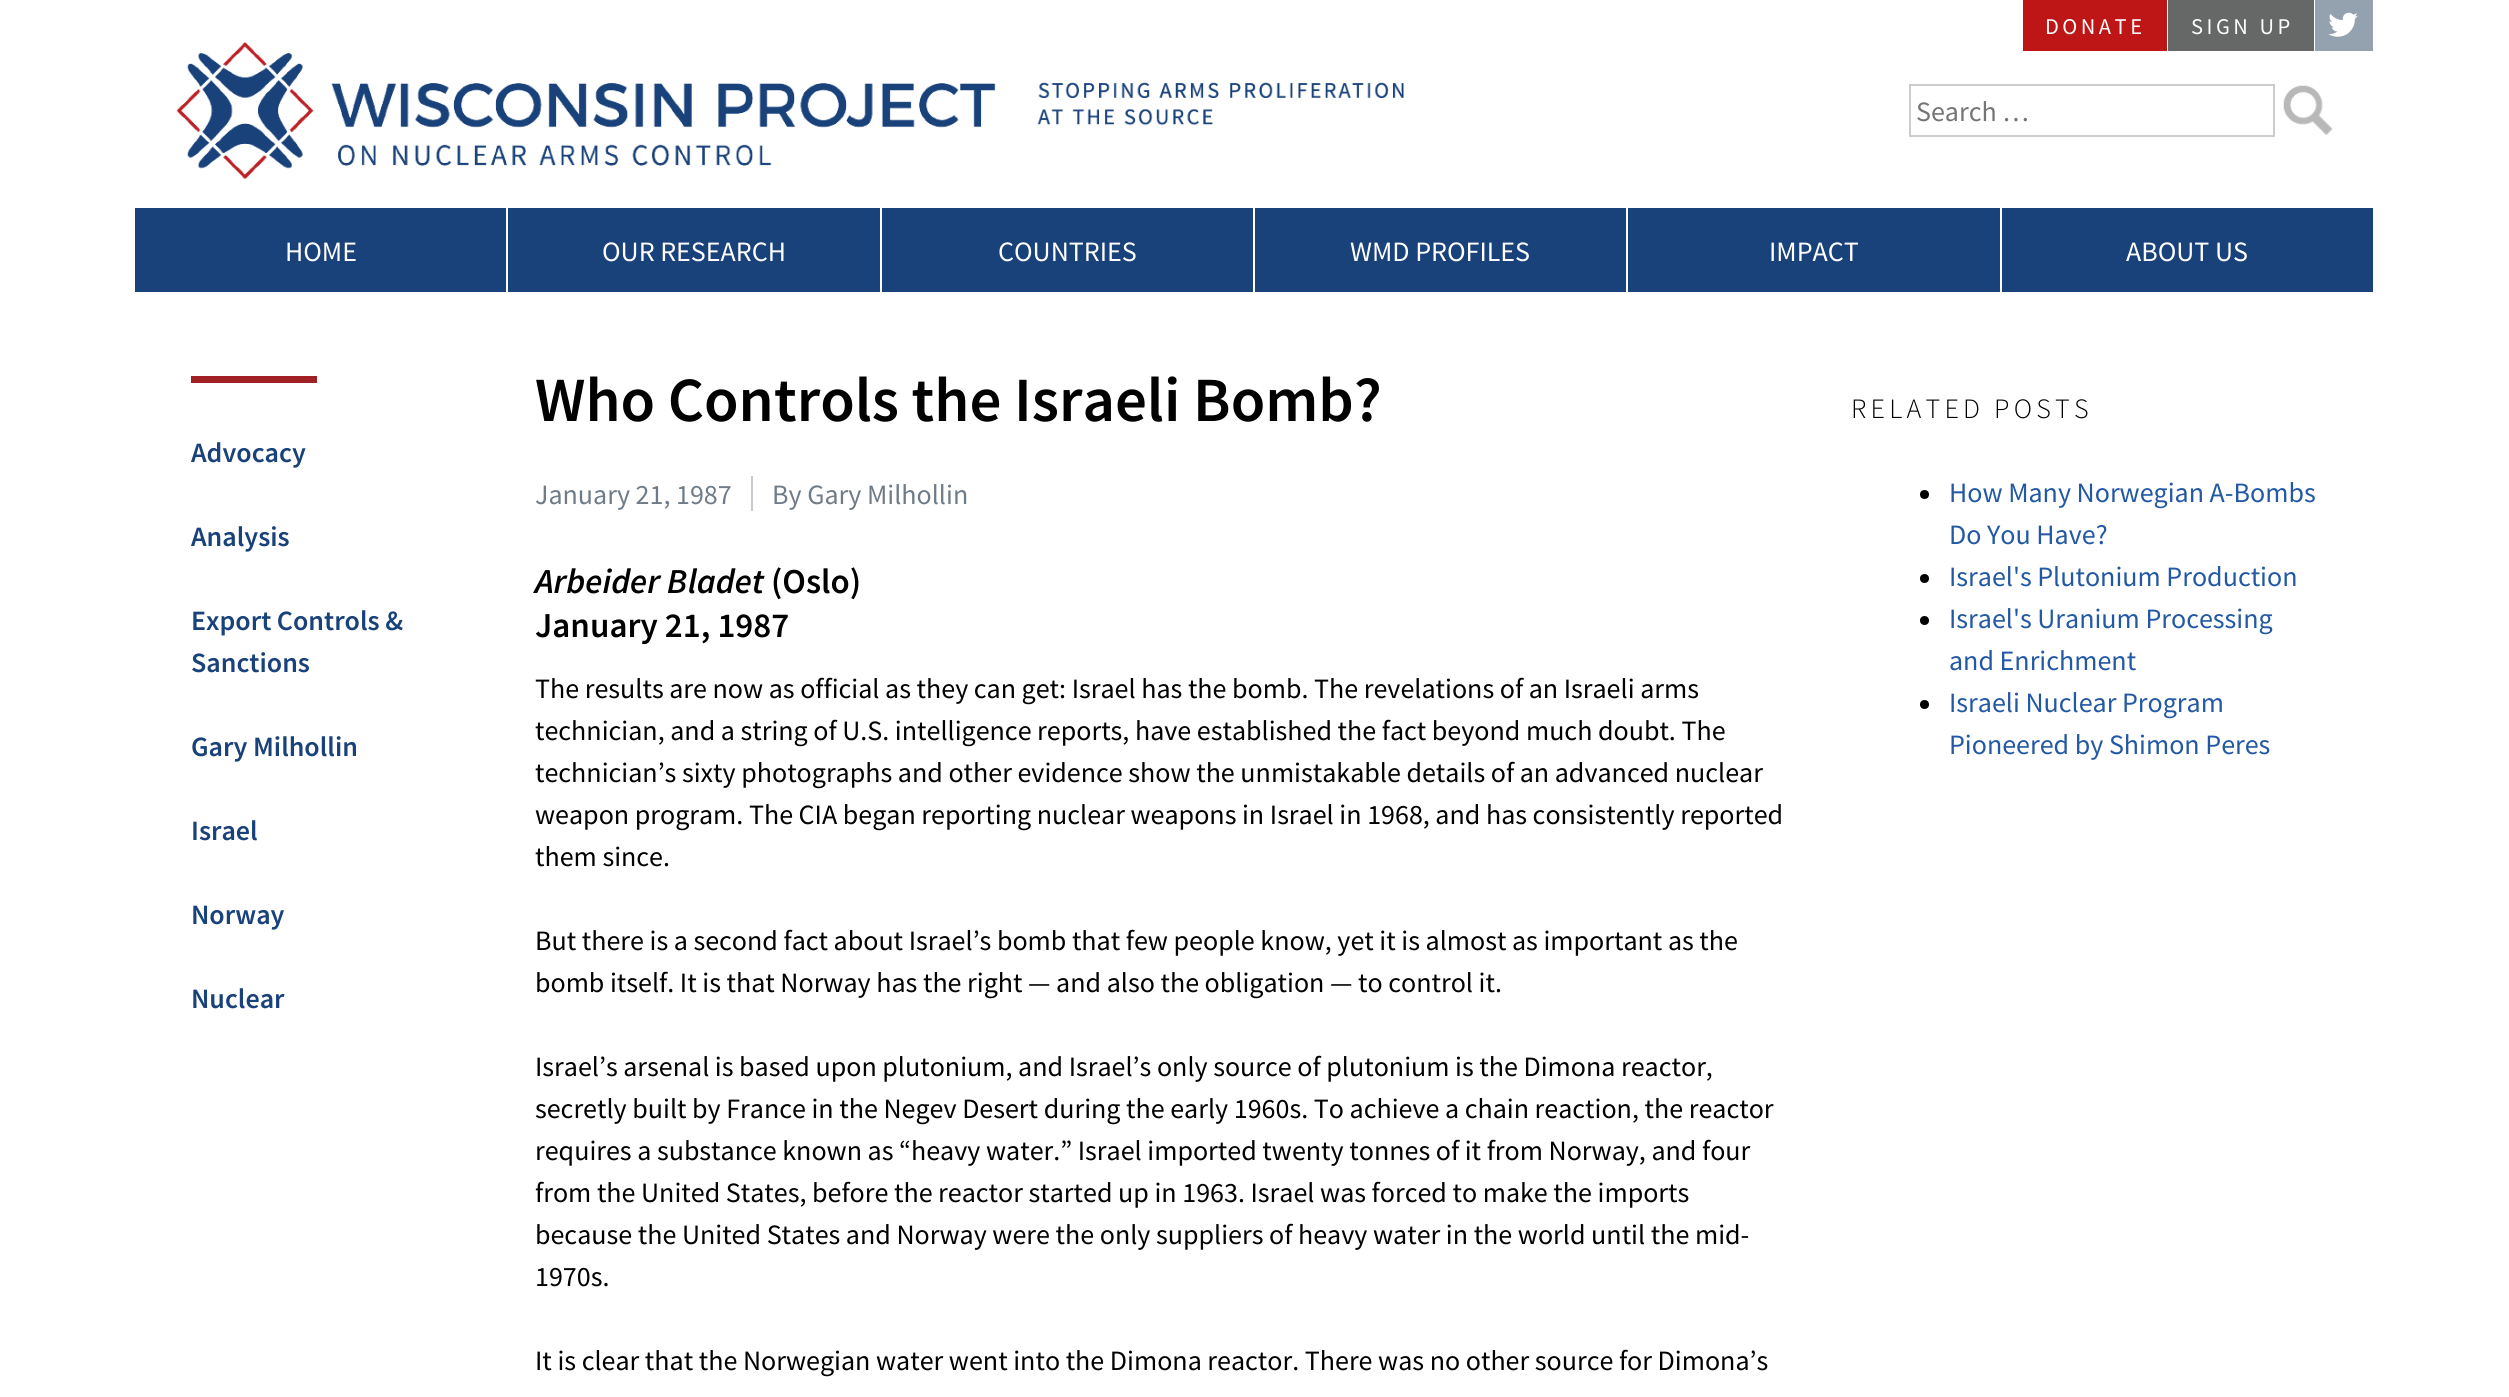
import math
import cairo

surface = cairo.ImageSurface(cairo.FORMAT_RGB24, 2509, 1397)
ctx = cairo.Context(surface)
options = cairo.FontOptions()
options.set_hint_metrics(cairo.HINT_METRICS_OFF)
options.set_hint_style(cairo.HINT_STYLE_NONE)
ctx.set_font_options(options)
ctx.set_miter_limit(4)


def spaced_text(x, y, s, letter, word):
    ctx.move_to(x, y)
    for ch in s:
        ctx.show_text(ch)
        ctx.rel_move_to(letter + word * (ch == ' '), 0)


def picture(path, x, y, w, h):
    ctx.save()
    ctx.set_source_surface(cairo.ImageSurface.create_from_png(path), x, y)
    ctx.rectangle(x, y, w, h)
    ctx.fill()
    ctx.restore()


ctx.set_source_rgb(1, 1, 1)
ctx.paint()
ctx.set_source_rgb(0.745, 0.086, 0.086)
ctx.rectangle(2023, 0, 144, 51)
ctx.fill()
ctx.select_font_face("Source Sans Pro")
ctx.set_font_size(22.5)
ctx.set_source_rgb(1, 1, 1)
spaced_text(2045, 34, "DONATE", 3.5, 0)
ctx.set_source_rgb(0.4, 0.408, 0.408)
ctx.rectangle(2168, 0, 146, 51)
ctx.fill()
ctx.set_source_rgb(1, 1, 1)
spaced_text(2191, 34, "SIGN UP", 3.5, 0)
ctx.set_source_rgb(0.58, 0.635, 0.69)
ctx.rectangle(2315, 0, 58, 51)
ctx.fill()
picture("img1.png", 2328, 12, 30, 25)
picture("img2.png", 176, 42, 820, 137)
picture("img3.png", 1037, 82, 367, 44)
ctx.rectangle(1910, 85, 364, 51)
ctx.set_source_rgb(0.8, 0.8, 0.8)
ctx.stroke()
ctx.set_font_size(28)
ctx.set_source_rgb(0.459, 0.459, 0.459)
ctx.move_to(1916, 121)
ctx.show_text("Search …")
picture("img4.png", 2283, 85, 50, 50)
ctx.set_source_rgb(0.098, 0.255, 0.478)
ctx.rectangle(135, 208, 2238, 84)
ctx.fill()
ctx.set_source_rgb(1, 1, 1)
ctx.rectangle(506, 208, 2, 84)
ctx.fill()
ctx.move_to(285, 261)
ctx.show_text("HOME")
ctx.rectangle(880, 208, 2, 84)
ctx.fill()
ctx.move_to(602, 261)
ctx.show_text("OUR RESEARCH")
ctx.rectangle(1253, 208, 2, 84)
ctx.fill()
ctx.move_to(998, 261)
ctx.show_text("COUNTRIES")
ctx.rectangle(1626, 208, 2, 84)
ctx.fill()
ctx.move_to(1350, 261)
ctx.show_text("WMD PROFILES")
ctx.rectangle(2000, 208, 2, 84)
ctx.fill()
ctx.move_to(1769, 261)
ctx.show_text("IMPACT")
ctx.move_to(2126, 261)
ctx.show_text("ABOUT US")
ctx.set_source_rgb(0.627, 0.125, 0.141)
ctx.rectangle(191, 376, 126, 7)
ctx.fill()
ctx.select_font_face("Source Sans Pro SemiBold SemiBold")
ctx.set_source_rgb(0.098, 0.255, 0.478)
ctx.move_to(191, 462)
ctx.show_text("Advocacy")
ctx.move_to(191, 546)
ctx.show_text("Analysis")
ctx.move_to(191, 630)
ctx.show_text("Export Controls &")
ctx.move_to(191, 672)
ctx.show_text("Sanctions")
ctx.move_to(191, 756)
ctx.show_text("Gary Milhollin")
ctx.move_to(191, 840)
ctx.show_text("Israel")
ctx.move_to(191, 924)
ctx.show_text("Norway")
ctx.move_to(191, 1008)
ctx.show_text("Nuclear")
ctx.set_font_size(63)
ctx.set_source_rgb(0, 0, 0)
ctx.move_to(535, 421)
ctx.show_text("Who Controls the Israeli Bomb?")
ctx.select_font_face("Source Sans Pro")
ctx.set_font_size(28)
ctx.set_source_rgb(0.435, 0.486, 0.533)
ctx.move_to(535, 504)
ctx.show_text("January 21, 1987")
ctx.move_to(772, 504)
ctx.show_text("By Gary Milhollin")
ctx.set_source_rgb(0.776, 0.796, 0.816)
ctx.rectangle(751, 476, 2, 35)
ctx.fill()
ctx.select_font_face("Source Sans Pro SemiBold SemiBold", cairo.FONT_SLANT_ITALIC)
ctx.set_font_size(35)
ctx.set_source_rgb(0, 0, 0)
ctx.move_to(535, 593)
ctx.show_text("Arbeider Bladet")
ctx.select_font_face("Source Sans Pro SemiBold SemiBold")
ctx.move_to(771, 593)
ctx.show_text("(Oslo)")
ctx.move_to(535, 637)
ctx.show_text("January 21, 1987")
ctx.select_font_face("Source Sans Pro")
ctx.set_font_size(28)
ctx.move_to(535, 698)
ctx.show_text("The results are now as official as they can get: Israel has the bomb. The revelations of an Israeli arms")
ctx.move_to(535, 740)
ctx.show_text("technician, and a string of U.S. intelligence reports, have established the fact beyond much doubt. The")
ctx.move_to(535, 782)
ctx.show_text("technician’s sixty photographs and other evidence show the unmistakable details of an advanced nuclear")
ctx.move_to(535, 824)
ctx.show_text("weapon program. The CIA began reporting nuclear weapons in Israel in 1968, and has consistently reported")
ctx.move_to(535, 866)
ctx.show_text("them since.")
ctx.move_to(535, 950)
ctx.show_text("But there is a second fact about Israel’s bomb that few people know, yet it is almost as important as the")
ctx.move_to(535, 992)
ctx.show_text("bomb itself. It is that Norway has the right — and also the obligation — to control it.")
ctx.move_to(535, 1076)
ctx.show_text("Israel’s arsenal is based upon plutonium, and Israel’s only source of plutonium is the Dimona reactor,")
ctx.move_to(535, 1118)
ctx.show_text("secretly built by France in the Negev Desert during the early 1960s. To achieve a chain reaction, the reactor")
ctx.move_to(535, 1160)
ctx.show_text("requires a substance known as “heavy water.” Israel imported twenty tonnes of it from Norway, and four")
ctx.move_to(535, 1202)
ctx.show_text("from the United States, before the reactor started up in 1963. Israel was forced to make the imports")
ctx.move_to(535, 1244)
ctx.show_text("because the United States and Norway were the only suppliers of heavy water in the world until the mid-")
ctx.move_to(535, 1286)
ctx.show_text("1970s.")
ctx.move_to(535, 1370)
ctx.show_text("It is clear that the Norwegian water went into the Dimona reactor. There was no other source for Dimona’s")
ctx.select_font_face("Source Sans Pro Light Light")
spaced_text(1851, 418, "RELATED POSTS", 4.25, 0)
ctx.new_path()
ctx.arc(1924.5, 494.5, 4.5, 0, 2 * math.pi)
ctx.fill()
ctx.select_font_face("Source Sans Pro")
ctx.set_source_rgb(0.133, 0.345, 0.643)
ctx.move_to(1949, 502)
ctx.show_text("How Many Norwegian A-Bombs")
ctx.move_to(1949, 544)
ctx.show_text("Do You Have?")
ctx.set_source_rgb(0, 0, 0)
ctx.new_path()
ctx.arc(1924.5, 578.5, 4.5, 0, 2 * math.pi)
ctx.fill()
ctx.set_source_rgb(0.133, 0.345, 0.643)
ctx.move_to(1949, 586)
ctx.show_text("Israel's Plutonium Production")
ctx.set_source_rgb(0, 0, 0)
ctx.new_path()
ctx.arc(1924.5, 620.5, 4.5, 0, 2 * math.pi)
ctx.fill()
ctx.set_source_rgb(0.133, 0.345, 0.643)
ctx.move_to(1949, 628)
ctx.show_text("Israel's Uranium Processing")
ctx.move_to(1949, 670)
ctx.show_text("and Enrichment")
ctx.set_source_rgb(0, 0, 0)
ctx.new_path()
ctx.arc(1924.5, 704.5, 4.5, 0, 2 * math.pi)
ctx.fill()
ctx.set_source_rgb(0.133, 0.345, 0.643)
ctx.move_to(1949, 712)
ctx.show_text("Israeli Nuclear Program")
ctx.move_to(1949, 754)
ctx.show_text("Pioneered by Shimon Peres")
surface.write_to_png("page.png")
